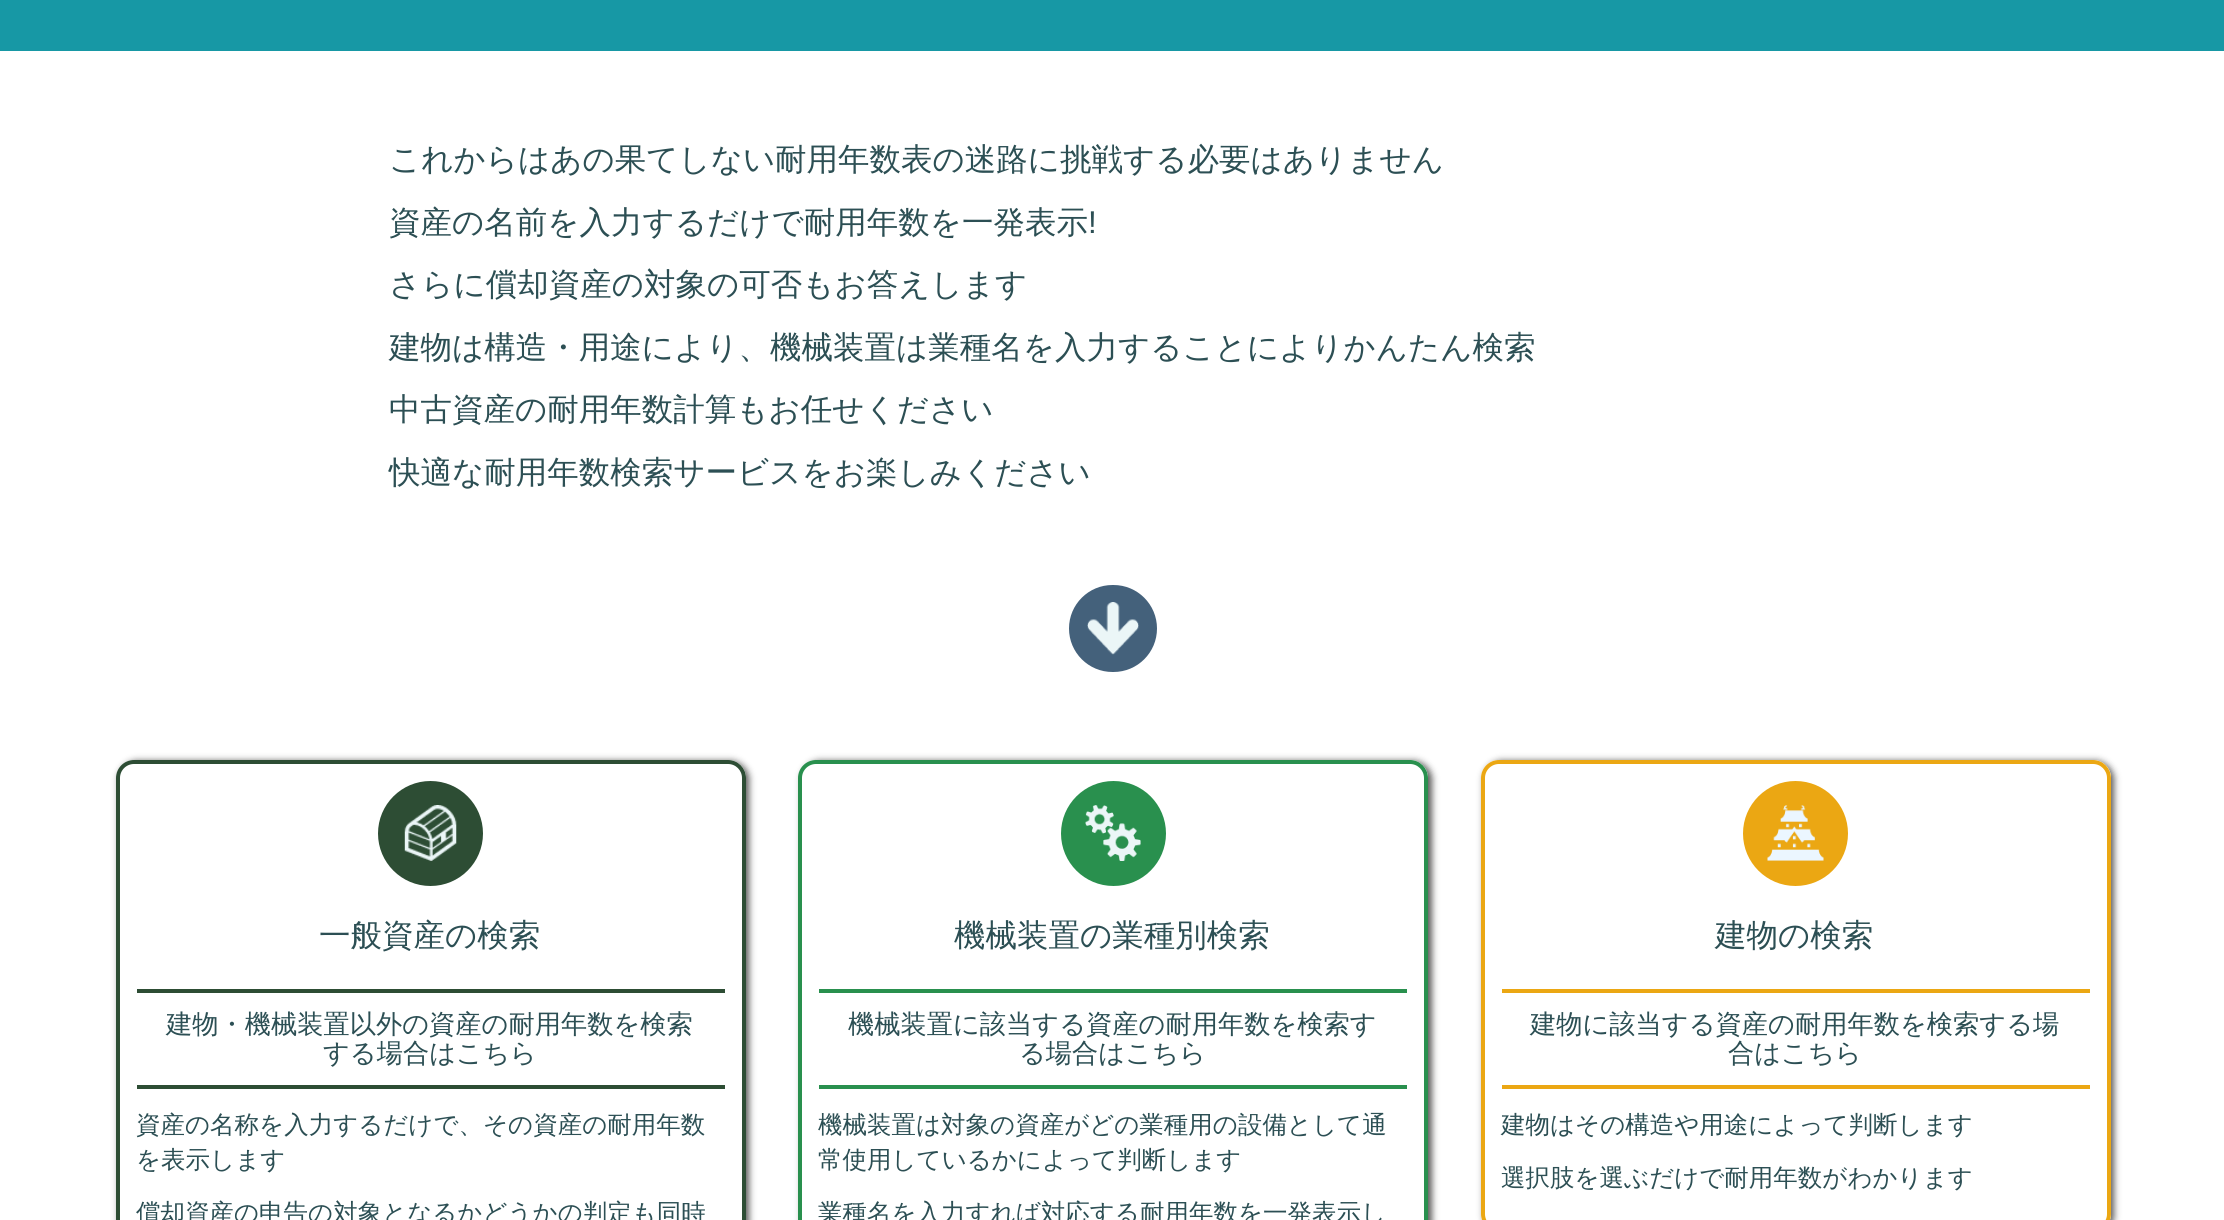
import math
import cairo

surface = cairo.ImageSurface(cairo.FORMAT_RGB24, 2224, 1220)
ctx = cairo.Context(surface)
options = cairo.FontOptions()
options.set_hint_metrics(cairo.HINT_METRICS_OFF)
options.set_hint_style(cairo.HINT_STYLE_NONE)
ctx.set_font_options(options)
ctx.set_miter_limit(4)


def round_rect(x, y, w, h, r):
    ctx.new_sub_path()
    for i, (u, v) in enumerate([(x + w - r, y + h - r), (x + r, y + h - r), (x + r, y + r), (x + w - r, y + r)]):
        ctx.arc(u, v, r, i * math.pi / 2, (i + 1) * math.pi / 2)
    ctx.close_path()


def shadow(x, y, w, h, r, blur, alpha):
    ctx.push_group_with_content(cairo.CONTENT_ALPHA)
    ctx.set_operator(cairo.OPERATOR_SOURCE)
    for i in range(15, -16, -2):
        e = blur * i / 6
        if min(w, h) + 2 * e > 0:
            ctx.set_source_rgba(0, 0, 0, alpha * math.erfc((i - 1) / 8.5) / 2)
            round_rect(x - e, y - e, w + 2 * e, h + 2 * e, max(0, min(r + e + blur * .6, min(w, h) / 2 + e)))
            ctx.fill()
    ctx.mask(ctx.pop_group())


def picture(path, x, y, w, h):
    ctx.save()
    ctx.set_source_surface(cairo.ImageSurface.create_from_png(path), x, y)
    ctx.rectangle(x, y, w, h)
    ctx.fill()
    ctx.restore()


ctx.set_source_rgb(1, 1, 1)
ctx.paint()
ctx.set_source_rgb(0.09, 0.596, 0.647)
ctx.rectangle(0, 0, 2224, 51)
ctx.fill()
ctx.select_font_face("WenQuanYi Zen Hei Medium")
ctx.set_font_size(31.5)
ctx.set_source_rgb(0.173, 0.31, 0.329)
ctx.move_to(389, 170)
ctx.show_text("これからはあの果てしない耐用年数表の迷路に挑戦する必要はありません")
ctx.move_to(389, 233)
ctx.show_text("資産の名前を入力するだけで耐用年数を一発表示")
ctx.select_font_face("Liberation Sans")
ctx.move_to(1088, 233)
ctx.show_text("!")
ctx.select_font_face("WenQuanYi Zen Hei Medium")
ctx.move_to(389, 295)
ctx.show_text("さらに償却資産の対象の可否もお答えします")
ctx.move_to(389, 358)
ctx.show_text("建物は構造・用途により、機械装置は業種名を入力することによりかんたん検索")
ctx.move_to(389, 420)
ctx.show_text("中古資産の耐用年数計算もお任せください")
ctx.move_to(389, 483)
ctx.show_text("快適な耐用年数検索サービスをお楽しみください")
ctx.set_source_rgb(0.267, 0.38, 0.482)
round_rect(1069, 585, 88, 87, 43.5)
ctx.fill()
picture("img1.png", 1087, 602, 52, 53)
ctx.save()
ctx.set_fill_rule(cairo.FILL_RULE_EVEN_ODD)
ctx.new_path()
ctx.move_to(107, 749)
ctx.line_to(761, 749)
ctx.line_to(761, 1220)
ctx.line_to(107, 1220)
ctx.close_path()
ctx.move_to(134, 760)
ctx.line_to(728, 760)
ctx.curve_to(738, 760, 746, 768, 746, 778)
ctx.line_to(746, 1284)
ctx.curve_to(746, 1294, 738, 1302, 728, 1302)
ctx.line_to(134, 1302)
ctx.curve_to(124, 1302, 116, 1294, 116, 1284)
ctx.line_to(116, 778)
ctx.curve_to(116, 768, 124, 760, 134, 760)
ctx.close_path()
ctx.clip()
ctx.set_source_rgb(0.349, 0.345, 0.341)
shadow(119, 761, 630, 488, 18, 3.5, 1)
ctx.restore()
round_rect(118, 762, 626, 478, 16)
ctx.set_source_rgb(0.176, 0.302, 0.204)
ctx.set_line_width(4)
ctx.stroke()
ctx.arc(430.5, 833.5, 52.5, 0, 2 * math.pi)
ctx.fill()
picture("img2.png", 404, 805, 53, 56)
ctx.set_source_rgb(0.173, 0.31, 0.329)
ctx.move_to(319, 946)
ctx.show_text("一般資産の検索")
ctx.set_source_rgb(0.176, 0.302, 0.204)
ctx.rectangle(137, 989, 588, 4)
ctx.fill()
ctx.rectangle(137, 1085, 588, 4)
ctx.fill()
ctx.set_font_size(26.25)
ctx.set_source_rgb(0.173, 0.31, 0.329)
ctx.move_to(166, 1033)
ctx.show_text("建物・機械装置以外の資産の耐用年数を検索")
ctx.move_to(323, 1062)
ctx.show_text("する場合はこちら")
ctx.set_font_size(24.5)
ctx.move_to(136, 1133)
ctx.show_text("資産の名称を入力するだけで、その資産の耐用年数")
ctx.move_to(136, 1168)
ctx.show_text("を表示します")
ctx.move_to(136, 1221)
ctx.show_text("償却資産の申告の対象となるかどうかの判定も同時")
ctx.save()
ctx.set_fill_rule(cairo.FILL_RULE_EVEN_ODD)
ctx.new_path()
ctx.move_to(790, 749)
ctx.line_to(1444, 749)
ctx.line_to(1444, 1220)
ctx.line_to(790, 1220)
ctx.close_path()
ctx.move_to(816, 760)
ctx.line_to(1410, 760)
ctx.curve_to(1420, 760, 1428, 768, 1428, 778)
ctx.line_to(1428, 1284)
ctx.curve_to(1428, 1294, 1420, 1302, 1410, 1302)
ctx.line_to(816, 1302)
ctx.curve_to(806, 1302, 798, 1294, 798, 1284)
ctx.line_to(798, 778)
ctx.curve_to(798, 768, 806, 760, 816, 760)
ctx.close_path()
ctx.clip()
ctx.set_source_rgb(0.349, 0.345, 0.341)
shadow(802, 761, 630, 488, 18, 3.5, 1)
ctx.restore()
round_rect(800, 762, 626, 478, 16)
ctx.set_source_rgb(0.161, 0.565, 0.306)
ctx.stroke()
ctx.arc(1113.5, 833.5, 52.5, 0, 2 * math.pi)
ctx.fill()
picture("img3.png", 1085, 805, 56, 56)
ctx.set_font_size(31.5)
ctx.set_source_rgb(0.173, 0.31, 0.329)
ctx.move_to(954, 946)
ctx.show_text("機械装置の業種別検索")
ctx.set_source_rgb(0.161, 0.565, 0.306)
ctx.rectangle(819, 989, 588, 4)
ctx.fill()
ctx.rectangle(819, 1085, 588, 4)
ctx.fill()
ctx.set_font_size(26.25)
ctx.set_source_rgb(0.173, 0.31, 0.329)
ctx.move_to(848, 1033)
ctx.show_text("機械装置に該当する資産の耐用年数を検索す")
ctx.move_to(1019, 1062)
ctx.show_text("る場合はこちら")
ctx.set_font_size(24.5)
ctx.move_to(818, 1133)
ctx.show_text("機械装置は対象の資産がどの業種用の設備として通")
ctx.move_to(818, 1168)
ctx.show_text("常使用しているかによって判断します")
ctx.move_to(818, 1221)
ctx.show_text("業種名を入力すれば対応する耐用年数を一発表示し")
ctx.save()
ctx.set_fill_rule(cairo.FILL_RULE_EVEN_ODD)
ctx.new_path()
ctx.move_to(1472, 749)
ctx.line_to(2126, 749)
ctx.line_to(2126, 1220)
ctx.line_to(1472, 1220)
ctx.close_path()
ctx.move_to(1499, 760)
ctx.line_to(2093, 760)
ctx.curve_to(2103, 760, 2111, 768, 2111, 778)
ctx.line_to(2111, 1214)
ctx.curve_to(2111, 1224, 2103, 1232, 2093, 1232)
ctx.line_to(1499, 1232)
ctx.curve_to(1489, 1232, 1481, 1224, 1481, 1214)
ctx.line_to(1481, 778)
ctx.curve_to(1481, 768, 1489, 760, 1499, 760)
ctx.close_path()
ctx.clip()
ctx.set_source_rgb(0.349, 0.345, 0.341)
shadow(1484, 761, 630, 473, 18, 3.5, 1)
ctx.restore()
round_rect(1483, 762, 626, 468, 16)
ctx.set_source_rgb(0.918, 0.655, 0.078)
ctx.stroke()
ctx.arc(1795.5, 833.5, 52.5, 0, 2 * math.pi)
ctx.fill()
picture("img4.png", 1767, 805, 57, 56)
ctx.set_font_size(31.5)
ctx.set_source_rgb(0.173, 0.31, 0.329)
ctx.move_to(1715, 946)
ctx.show_text("建物の検索")
ctx.set_source_rgb(0.918, 0.655, 0.078)
ctx.rectangle(1502, 989, 588, 4)
ctx.fill()
ctx.rectangle(1502, 1085, 588, 4)
ctx.fill()
ctx.set_font_size(26.25)
ctx.set_source_rgb(0.173, 0.31, 0.329)
ctx.move_to(1530, 1033)
ctx.show_text("建物に該当する資産の耐用年数を検索する場")
ctx.move_to(1728, 1062)
ctx.show_text("合はこちら")
ctx.set_font_size(24.5)
ctx.move_to(1501, 1133)
ctx.show_text("建物はその構造や用途によって判断します")
ctx.move_to(1501, 1186)
ctx.show_text("選択肢を選ぶだけで耐用年数がわかります")
surface.write_to_png("page.png")
